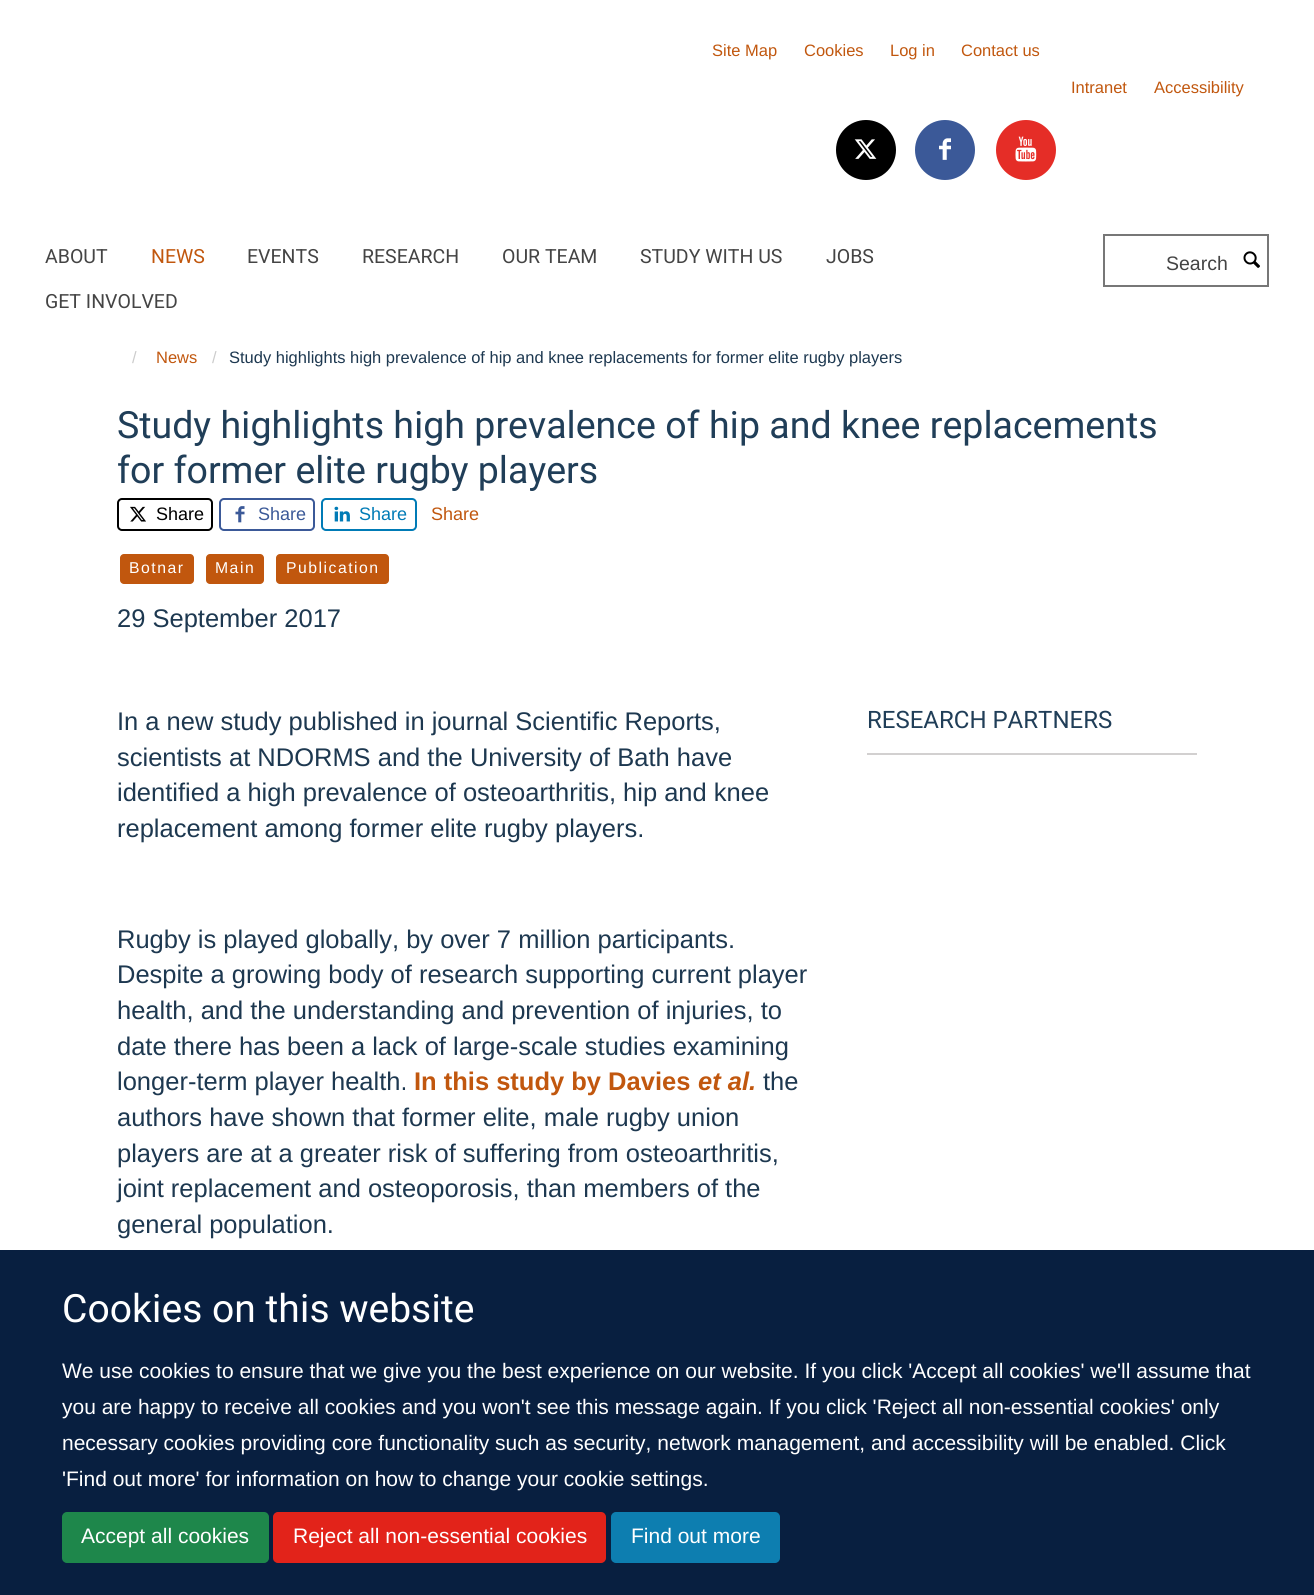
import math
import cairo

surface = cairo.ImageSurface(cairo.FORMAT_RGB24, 1314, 1595)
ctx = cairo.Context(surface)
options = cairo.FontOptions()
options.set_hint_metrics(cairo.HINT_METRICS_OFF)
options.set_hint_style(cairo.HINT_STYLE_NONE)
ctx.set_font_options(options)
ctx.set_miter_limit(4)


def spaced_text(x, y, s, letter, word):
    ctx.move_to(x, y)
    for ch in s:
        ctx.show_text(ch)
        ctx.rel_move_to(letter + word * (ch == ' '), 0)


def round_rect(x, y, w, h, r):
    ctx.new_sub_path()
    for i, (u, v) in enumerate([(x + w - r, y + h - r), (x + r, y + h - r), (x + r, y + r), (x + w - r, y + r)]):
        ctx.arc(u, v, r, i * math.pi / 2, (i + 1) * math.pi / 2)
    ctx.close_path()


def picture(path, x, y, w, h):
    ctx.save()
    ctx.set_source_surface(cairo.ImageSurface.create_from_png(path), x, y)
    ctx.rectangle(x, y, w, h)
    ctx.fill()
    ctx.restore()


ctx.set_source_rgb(1, 1, 1)
ctx.paint()
ctx.select_font_face("Liberation Sans")
ctx.set_font_size(16.5)
ctx.set_source_rgb(0.757, 0.341, 0.055)
ctx.move_to(712, 56)
ctx.show_text("Site Map")
ctx.move_to(804, 56)
ctx.show_text("Cookies")
ctx.move_to(890, 56)
ctx.show_text("Log in")
ctx.move_to(961, 56)
ctx.show_text("Contact us")
ctx.move_to(1071, 93)
ctx.show_text("Intranet")
ctx.move_to(1154, 93)
ctx.show_text("Accessibility")
ctx.set_source_rgb(0, 0, 0)
ctx.new_path()
ctx.arc(866, 150, 30, 0, 2 * math.pi)
ctx.fill()
picture("img1.png", 854, 139, 23, 20)
ctx.set_source_rgb(0.231, 0.349, 0.596)
ctx.arc(945, 150, 30, 0, 2 * math.pi)
ctx.fill()
picture("img2.png", 939, 138, 12, 22)
ctx.set_source_rgb(0.898, 0.176, 0.153)
ctx.arc(1026, 150, 30, 0, 2 * math.pi)
ctx.fill()
picture("img3.png", 1015, 136, 22, 26)
ctx.select_font_face("Heebo")
ctx.set_font_size(19.5)
ctx.set_source_rgb(0.267, 0.267, 0.267)
ctx.move_to(45, 263)
ctx.show_text("ABOUT")
ctx.set_source_rgb(0.757, 0.341, 0.055)
ctx.move_to(151, 263)
ctx.show_text("NEWS")
ctx.set_source_rgb(0.267, 0.267, 0.267)
ctx.move_to(247, 263)
ctx.show_text("EVENTS")
ctx.move_to(362, 263)
ctx.show_text("RESEARCH")
ctx.move_to(502, 263)
ctx.show_text("OUR TEAM")
ctx.move_to(640, 263)
ctx.show_text("STUDY WITH US")
ctx.move_to(826, 263)
ctx.show_text("JOBS")
ctx.move_to(45, 308)
ctx.show_text("GET INVOLVED")
ctx.rectangle(1104, 235, 164, 51)
ctx.set_source_rgb(0.467, 0.467, 0.467)
ctx.stroke()
ctx.select_font_face("Liberation Sans")
ctx.set_source_rgb(0.267, 0.267, 0.267)
ctx.move_to(1166, 270)
ctx.show_text("Search")
picture("img4.png", 1243, 251, 17, 17)
ctx.set_font_size(16.5)
ctx.set_source_rgb(0.8, 0.8, 0.8)
ctx.move_to(132, 363)
ctx.show_text("/")
ctx.set_source_rgb(0.757, 0.341, 0.055)
ctx.move_to(156, 363)
ctx.show_text("News")
ctx.set_source_rgb(0.8, 0.8, 0.8)
ctx.move_to(212, 363)
ctx.show_text("/")
ctx.set_source_rgb(0.114, 0.22, 0.314)
ctx.move_to(229, 363)
ctx.show_text("Study highlights high prevalence of hip and knee replacements for former elite rugby players")
ctx.select_font_face("Heebo")
ctx.set_font_size(37.5)
ctx.set_source_rgb(0.125, 0.243, 0.345)
ctx.move_to(117, 438)
ctx.show_text("Study highlights high prevalence of hip and knee replacements")
ctx.move_to(117, 483)
ctx.show_text("for former elite rugby players")
round_rect(118, 499, 94, 31, 4)
ctx.set_source_rgb(0, 0, 0)
ctx.stroke()
picture("img5.png", 130, 506, 16, 16)
ctx.select_font_face("Liberation Sans")
ctx.set_font_size(18)
ctx.move_to(156, 520)
ctx.show_text("Share")
round_rect(220, 499, 94, 31, 4)
ctx.set_source_rgb(0.231, 0.349, 0.596)
ctx.stroke()
picture("img6.png", 235, 506, 10, 17)
ctx.move_to(258, 520)
ctx.show_text("Share")
round_rect(322, 499, 94, 31, 4)
ctx.set_source_rgb(0, 0.482, 0.714)
ctx.stroke()
picture("img7.png", 334, 506, 16, 16)
ctx.move_to(359, 520)
ctx.show_text("Share")
ctx.set_source_rgb(0.757, 0.341, 0.055)
ctx.move_to(431, 520)
ctx.show_text("Share")
round_rect(120, 554, 74, 30, 4)
ctx.fill()
ctx.set_font_size(15.75)
ctx.set_source_rgb(1, 1, 1)
spaced_text(129, 573, "Botnar", 1.5, 0)
ctx.set_source_rgb(0.757, 0.341, 0.055)
round_rect(206, 554, 58, 30, 4)
ctx.fill()
ctx.set_source_rgb(1, 1, 1)
spaced_text(215, 573, "Main", 1.5, 0)
ctx.set_source_rgb(0.757, 0.341, 0.055)
round_rect(276, 554, 113, 30, 4)
ctx.fill()
ctx.set_source_rgb(1, 1, 1)
spaced_text(286, 573, "Publication", 1.5, 0)
ctx.set_font_size(25.5)
ctx.set_source_rgb(0.114, 0.22, 0.314)
ctx.move_to(117, 627)
ctx.show_text("29 September 2017")
ctx.move_to(117, 730)
ctx.show_text("In a new study published in journal Scientific Reports,")
ctx.move_to(117, 766)
ctx.show_text("scientists at NDORMS and the University of Bath have")
ctx.move_to(117, 801)
ctx.show_text("identified a high prevalence of osteoarthritis, hip and knee")
ctx.move_to(117, 837)
ctx.show_text("replacement among former elite rugby players.")
ctx.move_to(117, 948)
ctx.show_text("Rugby is played globally, by over 7 million participants.")
ctx.move_to(117, 983)
ctx.show_text("Despite a growing body of research supporting current player")
ctx.move_to(117, 1019)
ctx.show_text("health, and the understanding and prevention of injuries, to")
ctx.move_to(117, 1055)
ctx.show_text("date there has been a lack of large-scale studies examining")
ctx.move_to(117, 1090)
ctx.show_text("longer-term player health.")
ctx.select_font_face("Liberation Sans", cairo.FONT_SLANT_NORMAL, cairo.FONT_WEIGHT_BOLD)
ctx.set_source_rgb(0.757, 0.341, 0.055)
ctx.move_to(414, 1090)
ctx.show_text("In this study by Davies")
ctx.select_font_face("Liberation Sans", cairo.FONT_SLANT_ITALIC, cairo.FONT_WEIGHT_BOLD)
ctx.move_to(698, 1090)
ctx.show_text("et al.")
ctx.select_font_face("Liberation Sans")
ctx.set_source_rgb(0.114, 0.22, 0.314)
ctx.move_to(763, 1090)
ctx.show_text("the")
ctx.move_to(117, 1126)
ctx.show_text("authors have shown that former elite, male rugby union")
ctx.move_to(117, 1162)
ctx.show_text("players are at a greater risk of suffering from osteoarthritis,")
ctx.move_to(117, 1197)
ctx.show_text("joint replacement and osteoporosis, than members of the")
ctx.move_to(117, 1233)
ctx.show_text("general population.")
ctx.set_source_rgb(0.824, 0.816, 0.816)
ctx.rectangle(867, 753, 330, 2)
ctx.fill()
ctx.select_font_face("Heebo")
ctx.set_font_size(24)
ctx.set_source_rgb(0.125, 0.243, 0.345)
ctx.move_to(867, 728)
ctx.show_text("RESEARCH PARTNERS")
ctx.set_source_rgb(0.035, 0.122, 0.251)
ctx.rectangle(0, 1250, 1314, 345)
ctx.fill()
ctx.set_font_size(39)
ctx.set_source_rgb(1, 1, 1)
ctx.move_to(62, 1322)
ctx.show_text("Cookies on this website")
ctx.select_font_face("Liberation Sans")
ctx.set_font_size(21)
ctx.move_to(62, 1378)
ctx.show_text("We use cookies to ensure that we give you the best experience on our website. If you click 'Accept all cookies' we'll assume that")
ctx.move_to(62, 1414)
ctx.show_text("you are happy to receive all cookies and you won't see this message again. If you click 'Reject all non-essential cookies' only")
ctx.move_to(62, 1450)
ctx.show_text("necessary cookies providing core functionality such as security, network management, and accessibility will be enabled. Click")
ctx.move_to(62, 1486)
ctx.show_text("'Find out more' for information on how to change your cookie settings.")
ctx.set_source_rgb(0.118, 0.529, 0.294)
round_rect(63, 1513, 205, 49, 4)
ctx.fill_preserve()
ctx.stroke()
ctx.set_source_rgb(1, 1, 1)
ctx.move_to(81, 1543)
ctx.show_text("Accept all cookies")
ctx.set_source_rgb(0.886, 0.137, 0.102)
round_rect(274, 1513, 331, 49, 4)
ctx.fill_preserve()
ctx.stroke()
ctx.set_source_rgb(1, 1, 1)
ctx.move_to(293, 1543)
ctx.show_text("Reject all non-essential cookies")
ctx.set_source_rgb(0.051, 0.494, 0.69)
round_rect(612, 1513, 167, 49, 4)
ctx.fill_preserve()
ctx.stroke()
ctx.set_source_rgb(1, 1, 1)
ctx.move_to(631, 1543)
ctx.show_text("Find out more")
surface.write_to_png("page.png")
